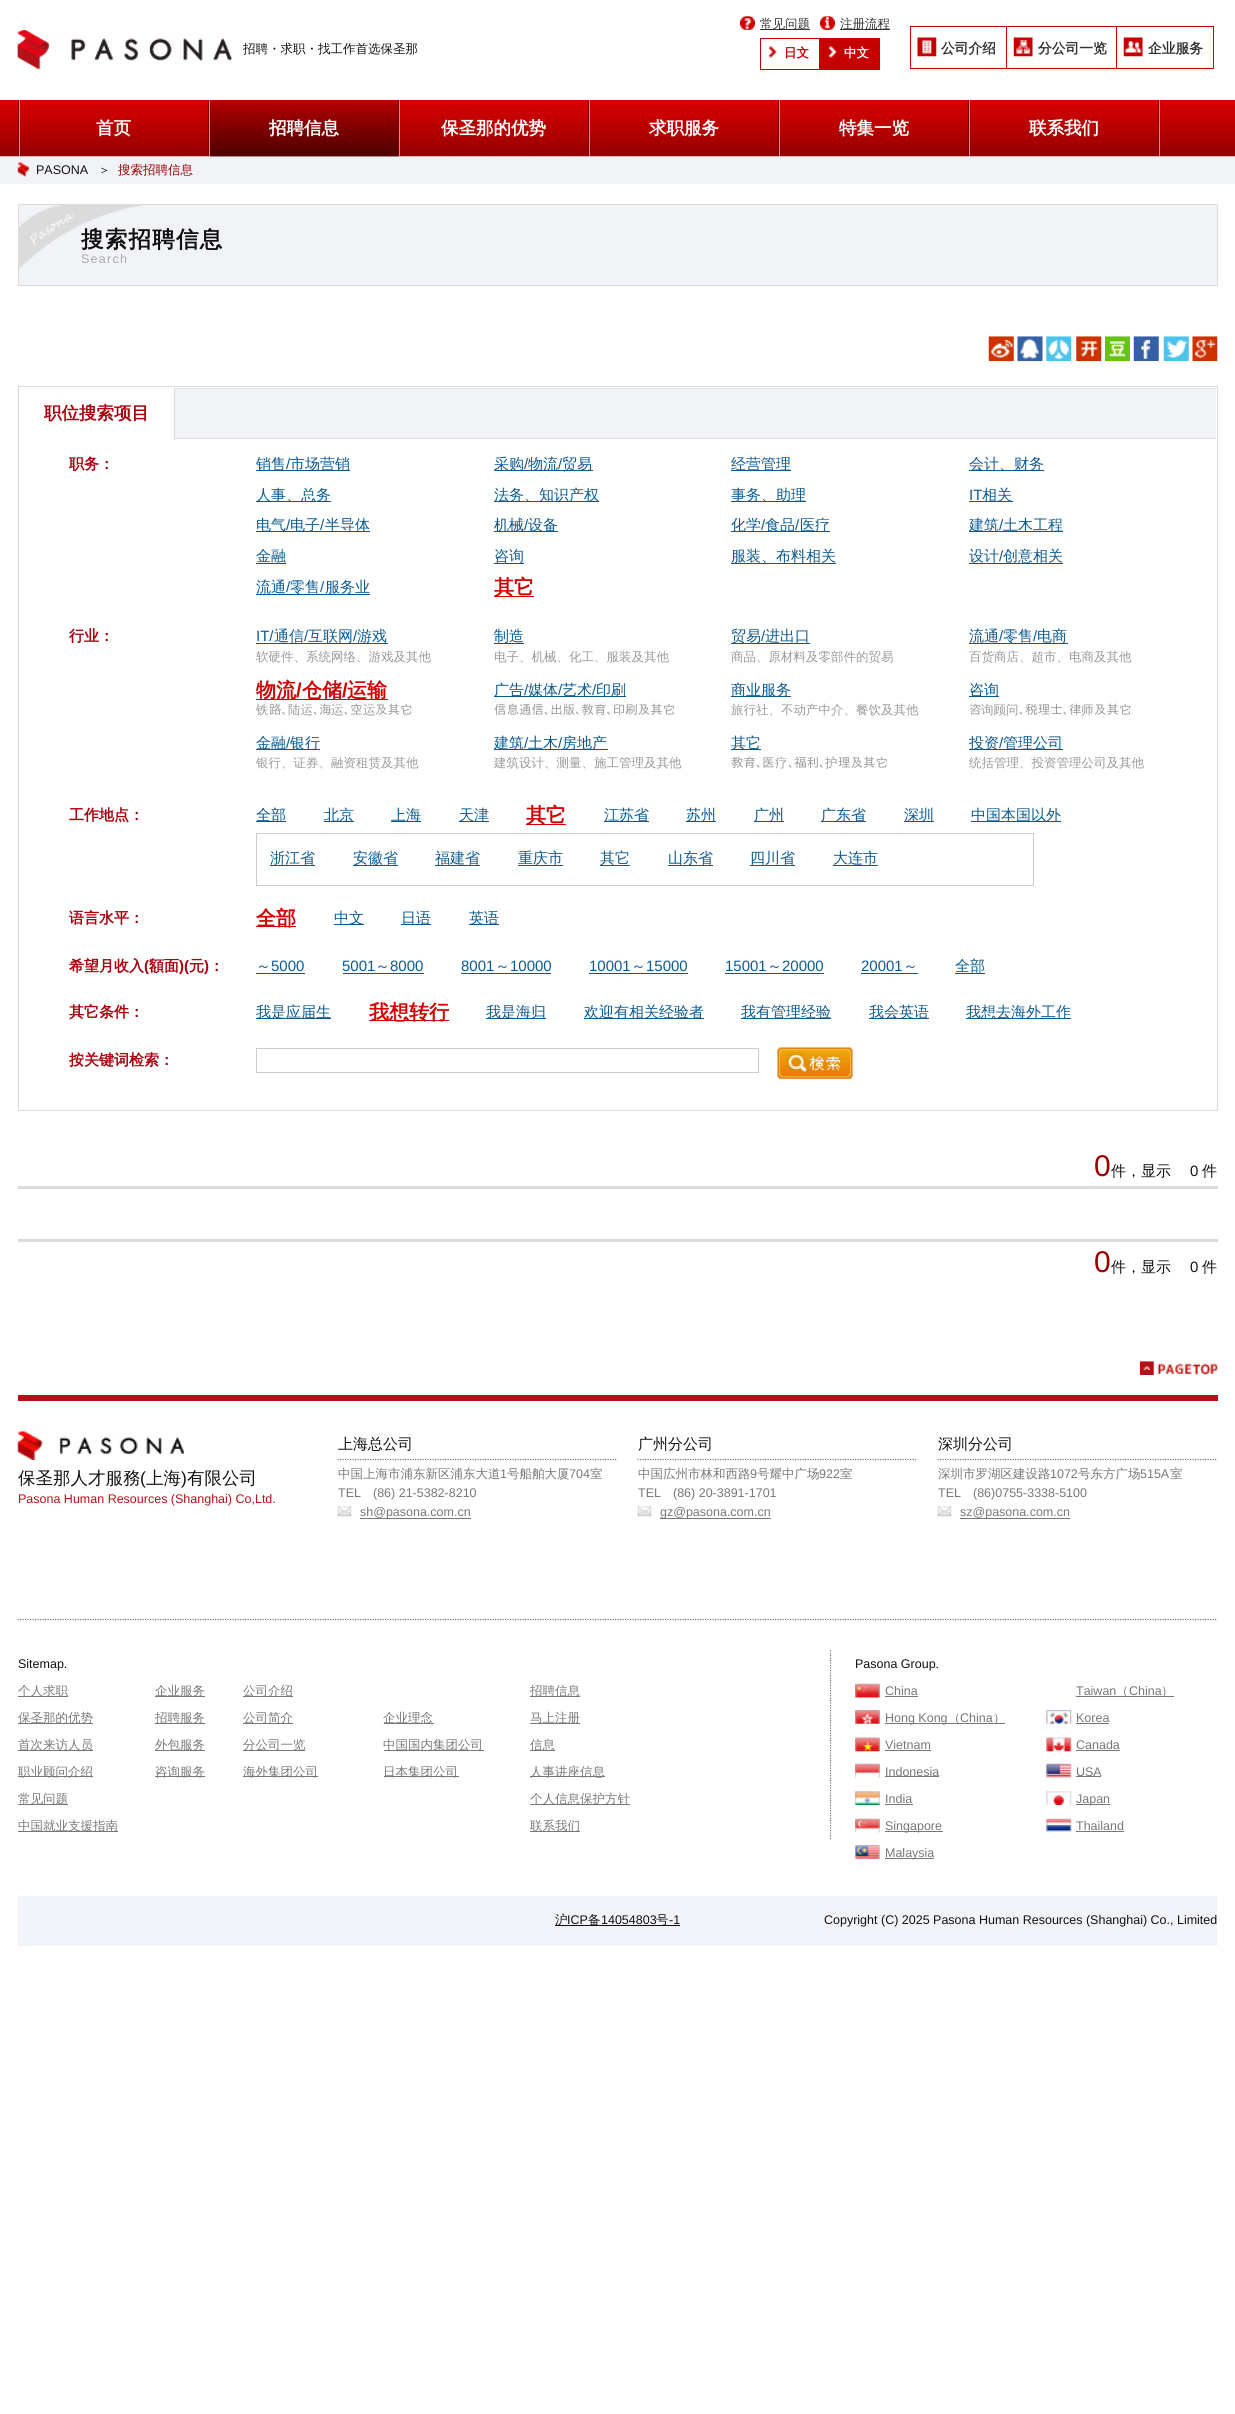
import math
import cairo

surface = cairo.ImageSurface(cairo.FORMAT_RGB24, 1235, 2414)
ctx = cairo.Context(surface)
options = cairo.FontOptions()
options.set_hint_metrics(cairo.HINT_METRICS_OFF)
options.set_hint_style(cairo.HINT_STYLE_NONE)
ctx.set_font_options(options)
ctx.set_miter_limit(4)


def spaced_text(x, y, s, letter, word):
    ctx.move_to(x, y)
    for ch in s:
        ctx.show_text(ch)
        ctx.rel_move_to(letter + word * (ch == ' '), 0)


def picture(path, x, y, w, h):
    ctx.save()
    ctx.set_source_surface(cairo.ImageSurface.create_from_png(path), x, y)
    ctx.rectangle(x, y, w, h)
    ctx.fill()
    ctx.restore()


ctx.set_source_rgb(1, 1, 1)
ctx.paint()
picture("img1.png", 17, 30, 215, 40)
picture("img2.png", 17, 30, 215, 40)
ctx.save()
ctx.rectangle(243, 30, 175, 38)
ctx.clip()
ctx.select_font_face("WenQuanYi Zen Hei Medium")
ctx.set_font_size(12.5)
ctx.set_source_rgb(0.067, 0.067, 0.067)
ctx.move_to(243, 53)
ctx.show_text("招聘・求职・找工作首选保圣那")
ctx.restore()
picture("img3.png", 740, 16, 15, 14)
ctx.set_source_rgb(0.2, 0.2, 0.2)
ctx.rectangle(760, 29, 50, 1)
ctx.fill()
ctx.select_font_face("WenQuanYi Zen Hei Medium")
ctx.set_font_size(12.5)
ctx.move_to(760, 28)
ctx.show_text("常见问题")
picture("img4.png", 820, 16, 15, 14)
ctx.rectangle(840, 29, 50, 1)
ctx.fill()
ctx.move_to(840, 28)
ctx.show_text("注册流程")
picture("img5.png", 768, 46, 9, 12)
ctx.rectangle(760.5, 38.5, 59, 31)
ctx.set_source_rgb(0.776, 0, 0.004)
ctx.set_line_width(1)
ctx.stroke()
ctx.select_font_face("WenQuanYi Zen Hei", cairo.FONT_SLANT_NORMAL, cairo.FONT_WEIGHT_BOLD)
ctx.move_to(784, 57)
ctx.show_text("日文")
ctx.rectangle(820, 38, 60, 32)
ctx.fill()
picture("img6.png", 828, 46, 9, 12)
ctx.set_source_rgb(1, 1, 1)
ctx.move_to(844, 57)
ctx.show_text("中文")
ctx.set_source_rgb(0.776, 0, 0.004)
ctx.rectangle(910, 26, 1, 43)
ctx.fill()
picture("img7.png", 917, 37, 20, 20)
ctx.rectangle(911, 26, 303, 1)
ctx.fill()
ctx.rectangle(1006, 26, 1, 43)
ctx.fill()
ctx.rectangle(911, 68, 97, 1)
ctx.fill()
ctx.set_font_size(13.75)
ctx.set_source_rgb(0.2, 0.2, 0.2)
ctx.move_to(941, 53)
ctx.show_text("公司介绍")
picture("img8.png", 1013, 37, 20, 20)
ctx.set_source_rgb(0.776, 0, 0.004)
ctx.rectangle(1116, 26, 1, 43)
ctx.fill()
ctx.rectangle(1008, 68, 110, 1)
ctx.fill()
ctx.set_source_rgb(0.2, 0.2, 0.2)
ctx.move_to(1038, 53)
ctx.show_text("分公司一览")
picture("img9.png", 1123, 37, 20, 20)
ctx.set_source_rgb(0.776, 0, 0.004)
ctx.rectangle(1213, 26, 1, 43)
ctx.fill()
ctx.rectangle(1118, 68, 96, 1)
ctx.fill()
ctx.set_source_rgb(0.2, 0.2, 0.2)
ctx.move_to(1148, 53)
ctx.show_text("企业服务")
ctx.set_source_rgb(0.945, 0.953, 0.965)
ctx.rectangle(0, 156, 1235, 28)
ctx.fill()
picture("img10.png", 0, 100, 1235, 57)
ctx.set_source_rgb(0.98, 0.494, 0.494)
ctx.rectangle(209, 100, 1, 56)
ctx.fill()
ctx.set_source_rgb(0.467, 0.016, 0.016)
ctx.rectangle(18, 100, 1, 56)
ctx.fill()
ctx.rectangle(208, 100, 1, 56)
ctx.fill()
ctx.set_source_rgb(0.98, 0.494, 0.494)
ctx.rectangle(19, 100, 1, 56)
ctx.fill()
ctx.set_font_size(17.5)
ctx.set_source_rgb(1, 1, 1)
ctx.move_to(96, 134)
ctx.show_text("首页")
ctx.set_source_rgb(0.98, 0.494, 0.494)
ctx.rectangle(399, 100, 1, 56)
ctx.fill()
picture("img11.png", 210, 100, 189, 57)
ctx.set_source_rgb(0.467, 0.016, 0.016)
ctx.rectangle(398, 100, 1, 56)
ctx.fill()
ctx.set_source_rgb(1, 1, 1)
ctx.move_to(269, 134)
ctx.show_text("招聘信息")
ctx.set_source_rgb(0.98, 0.494, 0.494)
ctx.rectangle(589, 100, 1, 56)
ctx.fill()
ctx.set_source_rgb(0.467, 0.016, 0.016)
ctx.rectangle(588, 100, 1, 56)
ctx.fill()
ctx.set_source_rgb(1, 1, 1)
ctx.move_to(441, 134)
ctx.show_text("保圣那的优势")
ctx.set_source_rgb(0.98, 0.494, 0.494)
ctx.rectangle(779, 100, 1, 56)
ctx.fill()
ctx.set_source_rgb(0.467, 0.016, 0.016)
ctx.rectangle(778, 100, 1, 56)
ctx.fill()
ctx.set_source_rgb(1, 1, 1)
ctx.move_to(649, 134)
ctx.show_text("求职服务")
ctx.set_source_rgb(0.98, 0.494, 0.494)
ctx.rectangle(969, 100, 1, 56)
ctx.fill()
ctx.set_source_rgb(0.467, 0.016, 0.016)
ctx.rectangle(968, 100, 1, 56)
ctx.fill()
ctx.set_source_rgb(1, 1, 1)
ctx.move_to(839, 134)
ctx.show_text("特集一览")
ctx.set_source_rgb(0.98, 0.494, 0.494)
ctx.rectangle(1159, 100, 1, 56)
ctx.fill()
ctx.set_source_rgb(0.467, 0.016, 0.016)
ctx.rectangle(1158, 100, 1, 56)
ctx.fill()
ctx.set_source_rgb(1, 1, 1)
ctx.move_to(1029, 134)
ctx.show_text("联系我们")
picture("img12.png", 17, 162, 13, 15)
ctx.select_font_face("Liberation Sans")
ctx.set_font_size(12.5)
ctx.set_source_rgb(0.067, 0.067, 0.067)
ctx.move_to(36, 174)
ctx.show_text("PASONA")
ctx.select_font_face("WenQuanYi Zen Hei Medium")
ctx.move_to(98, 174)
ctx.show_text("＞")
ctx.set_source_rgb(0.6, 0, 0)
ctx.move_to(118, 174)
ctx.show_text("搜索招聘信息")
ctx.set_source_rgb(0.945, 0.953, 0.965)
ctx.rectangle(19, 205, 1198, 80)
ctx.fill()
picture("img13.png", 19, 205, 124, 64)
ctx.rectangle(18.5, 204.5, 1199, 81)
ctx.set_source_rgb(0.859, 0.859, 0.859)
ctx.stroke()
ctx.select_font_face("WenQuanYi Zen Hei", cairo.FONT_SLANT_NORMAL, cairo.FONT_WEIGHT_BOLD)
ctx.set_font_size(22.5)
ctx.set_source_rgb(0.067, 0.067, 0.067)
spaced_text(81, 247, "搜索招聘信息", 1.25, 0)
ctx.select_font_face("Liberation Sans")
ctx.set_font_size(12.5)
ctx.set_source_rgb(0.675, 0.675, 0.675)
spaced_text(81, 263, "Search", 1.25, 0)
picture("img14.png", 988, 336, 26, 26)
picture("img15.png", 1017, 336, 26, 26)
picture("img16.png", 1046, 336, 26, 26)
picture("img17.png", 1076, 336, 26, 26)
picture("img18.png", 1105, 336, 25, 26)
picture("img19.png", 1133, 336, 26, 26)
picture("img20.png", 1163, 336, 26, 26)
picture("img21.png", 1192, 336, 26, 26)
ctx.rectangle(18.5, 386.5, 1199, 724)
ctx.set_source_rgb(0.859, 0.859, 0.859)
ctx.stroke()
ctx.set_source_rgb(0.945, 0.953, 0.965)
ctx.rectangle(175, 389, 1041, 49)
ctx.fill()
ctx.set_source_rgb(0.886, 0.886, 0.886)
ctx.rectangle(175, 388, 1041, 1)
ctx.fill()
ctx.set_source_rgb(0.859, 0.859, 0.859)
ctx.rectangle(175, 438, 1041, 1)
ctx.fill()
ctx.rectangle(174, 388, 1, 52)
ctx.fill()
ctx.select_font_face("WenQuanYi Zen Hei", cairo.FONT_SLANT_NORMAL, cairo.FONT_WEIGHT_BOLD)
ctx.set_font_size(17.5)
ctx.set_source_rgb(0.663, 0, 0.047)
ctx.move_to(44, 419)
ctx.show_text("职位搜索项目")
ctx.set_font_size(15)
ctx.move_to(69, 469)
ctx.show_text("职务：")
ctx.set_source_rgb(0.047, 0.349, 0.573)
ctx.rectangle(256, 470, 94, 1)
ctx.fill()
ctx.select_font_face("WenQuanYi Zen Hei Medium")
ctx.move_to(256, 469)
ctx.show_text("销售")
ctx.select_font_face("Liberation Sans")
ctx.move_to(286, 469)
ctx.show_text("/")
ctx.select_font_face("WenQuanYi Zen Hei Medium")
ctx.move_to(290, 469)
ctx.show_text("市场营销")
ctx.rectangle(494, 470, 99, 1)
ctx.fill()
ctx.move_to(494, 469)
ctx.show_text("采购")
ctx.select_font_face("Liberation Sans")
ctx.move_to(524, 469)
ctx.show_text("/")
ctx.select_font_face("WenQuanYi Zen Hei Medium")
ctx.move_to(528, 469)
ctx.show_text("物流")
ctx.select_font_face("Liberation Sans")
ctx.move_to(558, 469)
ctx.show_text("/")
ctx.select_font_face("WenQuanYi Zen Hei Medium")
ctx.move_to(562, 469)
ctx.show_text("贸易")
ctx.rectangle(731, 470, 60, 1)
ctx.fill()
ctx.move_to(731, 469)
ctx.show_text("经营管理")
ctx.rectangle(969, 470, 75, 1)
ctx.fill()
ctx.move_to(969, 469)
ctx.show_text("会计、财务")
ctx.rectangle(256, 501, 75, 1)
ctx.fill()
ctx.move_to(256, 500)
ctx.show_text("人事、总务")
ctx.rectangle(494, 501, 105, 1)
ctx.fill()
ctx.move_to(494, 500)
ctx.show_text("法务、知识产权")
ctx.rectangle(731, 501, 75, 1)
ctx.fill()
ctx.move_to(731, 500)
ctx.show_text("事务、助理")
ctx.select_font_face("Liberation Sans")
ctx.move_to(969, 500)
ctx.show_text("IT")
ctx.rectangle(969, 501, 44, 1)
ctx.fill()
ctx.select_font_face("WenQuanYi Zen Hei Medium")
ctx.move_to(982, 500)
ctx.show_text("相关")
ctx.rectangle(256, 531, 114, 1)
ctx.fill()
ctx.move_to(256, 530)
ctx.show_text("电气")
ctx.select_font_face("Liberation Sans")
ctx.move_to(286, 530)
ctx.show_text("/")
ctx.select_font_face("WenQuanYi Zen Hei Medium")
ctx.move_to(290, 530)
ctx.show_text("电子")
ctx.select_font_face("Liberation Sans")
ctx.move_to(320, 530)
ctx.show_text("/")
ctx.select_font_face("WenQuanYi Zen Hei Medium")
ctx.move_to(325, 530)
ctx.show_text("半导体")
ctx.rectangle(494, 531, 64, 1)
ctx.fill()
ctx.move_to(494, 530)
ctx.show_text("机械")
ctx.select_font_face("Liberation Sans")
ctx.move_to(524, 530)
ctx.show_text("/")
ctx.select_font_face("WenQuanYi Zen Hei Medium")
ctx.move_to(528, 530)
ctx.show_text("设备")
ctx.rectangle(731, 531, 99, 1)
ctx.fill()
ctx.move_to(731, 530)
ctx.show_text("化学")
ctx.select_font_face("Liberation Sans")
ctx.move_to(761, 530)
ctx.show_text("/")
ctx.select_font_face("WenQuanYi Zen Hei Medium")
ctx.move_to(765, 530)
ctx.show_text("食品")
ctx.select_font_face("Liberation Sans")
ctx.move_to(795, 530)
ctx.show_text("/")
ctx.select_font_face("WenQuanYi Zen Hei Medium")
ctx.move_to(800, 530)
ctx.show_text("医疗")
ctx.rectangle(969, 531, 94, 1)
ctx.fill()
ctx.move_to(969, 530)
ctx.show_text("建筑")
ctx.select_font_face("Liberation Sans")
ctx.move_to(999, 530)
ctx.show_text("/")
ctx.select_font_face("WenQuanYi Zen Hei Medium")
ctx.move_to(1003, 530)
ctx.show_text("土木工程")
ctx.move_to(256, 561)
ctx.show_text("金融")
ctx.rectangle(256, 563, 30, 1)
ctx.fill()
ctx.rectangle(494, 563, 30, 1)
ctx.fill()
ctx.move_to(494, 561)
ctx.show_text("咨询")
ctx.rectangle(731, 563, 105, 1)
ctx.fill()
ctx.move_to(731, 561)
ctx.show_text("服装、布料相关")
ctx.move_to(969, 561)
ctx.show_text("设计")
ctx.select_font_face("Liberation Sans")
ctx.move_to(999, 561)
ctx.show_text("/")
ctx.rectangle(969, 563, 94, 1)
ctx.fill()
ctx.select_font_face("WenQuanYi Zen Hei Medium")
ctx.move_to(1003, 561)
ctx.show_text("创意相关")
ctx.move_to(256, 592)
ctx.show_text("流通")
ctx.select_font_face("Liberation Sans")
ctx.move_to(286, 592)
ctx.show_text("/")
ctx.rectangle(256, 594, 114, 1)
ctx.fill()
ctx.select_font_face("WenQuanYi Zen Hei Medium")
ctx.move_to(290, 592)
ctx.show_text("零售")
ctx.select_font_face("Liberation Sans")
ctx.move_to(320, 592)
ctx.show_text("/")
ctx.select_font_face("WenQuanYi Zen Hei Medium")
ctx.move_to(325, 592)
ctx.show_text("服务业")
ctx.set_source_rgb(0.831, 0, 0)
ctx.rectangle(494, 596, 40, 1)
ctx.fill()
ctx.select_font_face("WenQuanYi Zen Hei", cairo.FONT_SLANT_NORMAL, cairo.FONT_WEIGHT_BOLD)
ctx.set_font_size(20)
ctx.move_to(494, 594)
ctx.show_text("其它")
ctx.set_font_size(15)
ctx.set_source_rgb(0.663, 0, 0.047)
ctx.move_to(69, 641)
ctx.show_text("行业：")
ctx.select_font_face("Liberation Sans")
ctx.set_source_rgb(0.047, 0.349, 0.573)
ctx.move_to(256, 641)
ctx.show_text("IT/")
ctx.rectangle(256, 643, 132, 1)
ctx.fill()
ctx.select_font_face("WenQuanYi Zen Hei Medium")
ctx.move_to(274, 641)
ctx.show_text("通信")
ctx.select_font_face("Liberation Sans")
ctx.move_to(304, 641)
ctx.show_text("/")
ctx.select_font_face("WenQuanYi Zen Hei Medium")
ctx.move_to(308, 641)
ctx.show_text("互联网")
ctx.select_font_face("Liberation Sans")
ctx.move_to(353, 641)
ctx.show_text("/")
ctx.select_font_face("WenQuanYi Zen Hei Medium")
ctx.move_to(357, 641)
ctx.show_text("游戏")
ctx.set_font_size(12.5)
ctx.set_source_rgb(0.6, 0.6, 0.6)
ctx.move_to(256, 661)
ctx.show_text("软硬件、系统网络、游戏及其他")
ctx.set_source_rgb(0.047, 0.349, 0.573)
ctx.rectangle(494, 643, 30, 1)
ctx.fill()
ctx.set_font_size(15)
ctx.move_to(494, 641)
ctx.show_text("制造")
ctx.set_font_size(12.5)
ctx.set_source_rgb(0.6, 0.6, 0.6)
ctx.move_to(494, 661)
ctx.show_text("电子、机械、化工、服装及其他")
ctx.set_source_rgb(0.047, 0.349, 0.573)
ctx.rectangle(731, 643, 79, 1)
ctx.fill()
ctx.set_font_size(15)
ctx.move_to(731, 641)
ctx.show_text("贸易")
ctx.select_font_face("Liberation Sans")
ctx.move_to(761, 641)
ctx.show_text("/")
ctx.select_font_face("WenQuanYi Zen Hei Medium")
ctx.move_to(765, 641)
ctx.show_text("进出口")
ctx.set_font_size(12.5)
ctx.set_source_rgb(0.6, 0.6, 0.6)
ctx.move_to(731, 661)
ctx.show_text("商品、原材料及零部件的贸易")
ctx.set_font_size(15)
ctx.set_source_rgb(0.047, 0.349, 0.573)
ctx.move_to(969, 641)
ctx.show_text("流通")
ctx.select_font_face("Liberation Sans")
ctx.move_to(999, 641)
ctx.show_text("/")
ctx.rectangle(969, 643, 99, 1)
ctx.fill()
ctx.select_font_face("WenQuanYi Zen Hei Medium")
ctx.move_to(1003, 641)
ctx.show_text("零售")
ctx.select_font_face("Liberation Sans")
ctx.move_to(1033, 641)
ctx.show_text("/")
ctx.select_font_face("WenQuanYi Zen Hei Medium")
ctx.move_to(1037, 641)
ctx.show_text("电商")
ctx.set_font_size(12.5)
ctx.set_source_rgb(0.6, 0.6, 0.6)
ctx.move_to(969, 661)
ctx.show_text("百货商店、超市、电商及其他")
ctx.set_source_rgb(0.831, 0, 0)
ctx.rectangle(256, 699, 132, 1)
ctx.fill()
ctx.select_font_face("WenQuanYi Zen Hei", cairo.FONT_SLANT_NORMAL, cairo.FONT_WEIGHT_BOLD)
ctx.set_font_size(20)
ctx.move_to(256, 697)
ctx.show_text("物流")
ctx.select_font_face("Liberation Sans", cairo.FONT_SLANT_NORMAL, cairo.FONT_WEIGHT_BOLD)
ctx.move_to(296, 697)
ctx.show_text("/")
ctx.select_font_face("WenQuanYi Zen Hei", cairo.FONT_SLANT_NORMAL, cairo.FONT_WEIGHT_BOLD)
ctx.move_to(302, 697)
ctx.show_text("仓储")
ctx.select_font_face("Liberation Sans", cairo.FONT_SLANT_NORMAL, cairo.FONT_WEIGHT_BOLD)
ctx.move_to(342, 697)
ctx.show_text("/")
ctx.select_font_face("WenQuanYi Zen Hei", cairo.FONT_SLANT_NORMAL, cairo.FONT_WEIGHT_BOLD)
ctx.move_to(347, 697)
ctx.show_text("运输")
ctx.select_font_face("WenQuanYi Zen Hei Medium")
ctx.set_font_size(12.5)
ctx.set_source_rgb(0.6, 0.6, 0.6)
ctx.move_to(256, 714)
ctx.show_text("铁")
ctx.select_font_face("IPAGothic")
ctx.move_to(269, 714)
ctx.show_text("路､")
ctx.select_font_face("WenQuanYi Zen Hei Medium")
ctx.move_to(288, 714)
ctx.show_text("陆运")
ctx.select_font_face("IPAGothic")
ctx.move_to(313, 714)
ctx.show_text("､海")
ctx.select_font_face("WenQuanYi Zen Hei Medium")
ctx.move_to(331, 714)
ctx.show_text("运")
ctx.select_font_face("IPAGothic")
ctx.move_to(344, 714)
ctx.show_text("､空")
ctx.select_font_face("WenQuanYi Zen Hei Medium")
ctx.move_to(363, 714)
ctx.show_text("运")
ctx.select_font_face("IPAGothic")
ctx.move_to(375, 714)
ctx.show_text("及其它")
ctx.set_source_rgb(0.047, 0.349, 0.573)
ctx.rectangle(494, 696, 132, 1)
ctx.fill()
ctx.select_font_face("WenQuanYi Zen Hei Medium")
ctx.set_font_size(15)
ctx.move_to(494, 695)
ctx.show_text("广告")
ctx.select_font_face("Liberation Sans")
ctx.move_to(524, 695)
ctx.show_text("/")
ctx.select_font_face("WenQuanYi Zen Hei Medium")
ctx.move_to(528, 695)
ctx.show_text("媒体")
ctx.select_font_face("Liberation Sans")
ctx.move_to(558, 695)
ctx.show_text("/")
ctx.select_font_face("WenQuanYi Zen Hei Medium")
ctx.move_to(562, 695)
ctx.show_text("艺术")
ctx.select_font_face("Liberation Sans")
ctx.move_to(592, 695)
ctx.show_text("/")
ctx.select_font_face("WenQuanYi Zen Hei Medium")
ctx.move_to(596, 695)
ctx.show_text("印刷")
ctx.select_font_face("IPAGothic")
ctx.set_font_size(12.5)
ctx.set_source_rgb(0.6, 0.6, 0.6)
ctx.move_to(494, 714)
ctx.show_text("信息通信､出版､教育､印刷及其它")
ctx.set_source_rgb(0.047, 0.349, 0.573)
ctx.rectangle(731, 696, 60, 1)
ctx.fill()
ctx.select_font_face("WenQuanYi Zen Hei Medium")
ctx.set_font_size(15)
ctx.move_to(731, 695)
ctx.show_text("商业服务")
ctx.set_font_size(12.5)
ctx.set_source_rgb(0.6, 0.6, 0.6)
ctx.move_to(731, 714)
ctx.show_text("旅行社、不动产中介、餐饮及其他")
ctx.set_source_rgb(0.047, 0.349, 0.573)
ctx.rectangle(969, 696, 30, 1)
ctx.fill()
ctx.set_font_size(15)
ctx.move_to(969, 695)
ctx.show_text("咨询")
ctx.select_font_face("IPAGothic")
ctx.set_font_size(12.5)
ctx.set_source_rgb(0.6, 0.6, 0.6)
ctx.move_to(969, 714)
ctx.show_text("咨")
ctx.select_font_face("WenQuanYi Zen Hei Medium")
ctx.move_to(981, 714)
ctx.show_text("询顾问")
ctx.select_font_face("IPAGothic")
ctx.move_to(1019, 714)
ctx.show_text("､税理士､律")
ctx.select_font_face("WenQuanYi Zen Hei Medium")
ctx.move_to(1081, 714)
ctx.show_text("师")
ctx.select_font_face("IPAGothic")
ctx.move_to(1094, 714)
ctx.show_text("及其它")
ctx.set_source_rgb(0.047, 0.349, 0.573)
ctx.rectangle(256, 749, 64, 1)
ctx.fill()
ctx.select_font_face("WenQuanYi Zen Hei Medium")
ctx.set_font_size(15)
ctx.move_to(256, 748)
ctx.show_text("金融")
ctx.select_font_face("Liberation Sans")
ctx.move_to(286, 748)
ctx.show_text("/")
ctx.select_font_face("WenQuanYi Zen Hei Medium")
ctx.move_to(290, 748)
ctx.show_text("银行")
ctx.set_font_size(12.5)
ctx.set_source_rgb(0.6, 0.6, 0.6)
ctx.move_to(256, 767)
ctx.show_text("银行、证券、融资租赁及其他")
ctx.set_source_rgb(0.047, 0.349, 0.573)
ctx.rectangle(494, 749, 114, 1)
ctx.fill()
ctx.set_font_size(15)
ctx.move_to(494, 748)
ctx.show_text("建筑")
ctx.select_font_face("Liberation Sans")
ctx.move_to(524, 748)
ctx.show_text("/")
ctx.select_font_face("WenQuanYi Zen Hei Medium")
ctx.move_to(528, 748)
ctx.show_text("土木")
ctx.select_font_face("Liberation Sans")
ctx.move_to(558, 748)
ctx.show_text("/")
ctx.select_font_face("WenQuanYi Zen Hei Medium")
ctx.move_to(562, 748)
ctx.show_text("房地产")
ctx.set_font_size(12.5)
ctx.set_source_rgb(0.6, 0.6, 0.6)
ctx.move_to(494, 767)
ctx.show_text("建筑设计、测量、施工管理及其他")
ctx.set_source_rgb(0.047, 0.349, 0.573)
ctx.rectangle(731, 749, 30, 1)
ctx.fill()
ctx.set_font_size(15)
ctx.move_to(731, 748)
ctx.show_text("其它")
ctx.select_font_face("IPAGothic")
ctx.set_font_size(12.5)
ctx.set_source_rgb(0.6, 0.6, 0.6)
ctx.move_to(731, 767)
ctx.show_text("教育､医")
ctx.select_font_face("WenQuanYi Zen Hei Medium")
ctx.move_to(775, 767)
ctx.show_text("疗")
ctx.select_font_face("IPAGothic")
ctx.move_to(788, 767)
ctx.show_text("､福利､")
ctx.select_font_face("WenQuanYi Zen Hei Medium")
ctx.move_to(825, 767)
ctx.show_text("护")
ctx.select_font_face("IPAGothic")
ctx.move_to(838, 767)
ctx.show_text("理及其它")
ctx.set_source_rgb(0.047, 0.349, 0.573)
ctx.rectangle(969, 749, 94, 1)
ctx.fill()
ctx.select_font_face("WenQuanYi Zen Hei Medium")
ctx.set_font_size(15)
ctx.move_to(969, 748)
ctx.show_text("投资")
ctx.select_font_face("Liberation Sans")
ctx.move_to(999, 748)
ctx.show_text("/")
ctx.select_font_face("WenQuanYi Zen Hei Medium")
ctx.move_to(1003, 748)
ctx.show_text("管理公司")
ctx.set_font_size(12.5)
ctx.set_source_rgb(0.6, 0.6, 0.6)
ctx.move_to(969, 767)
ctx.show_text("统括管理、投资管理公司及其他")
ctx.select_font_face("WenQuanYi Zen Hei", cairo.FONT_SLANT_NORMAL, cairo.FONT_WEIGHT_BOLD)
ctx.set_font_size(15)
ctx.set_source_rgb(0.663, 0, 0.047)
ctx.move_to(69, 820)
ctx.show_text("工作地点：")
ctx.set_source_rgb(0.047, 0.349, 0.573)
ctx.rectangle(256, 821, 30, 1)
ctx.fill()
ctx.select_font_face("WenQuanYi Zen Hei Medium")
ctx.move_to(256, 820)
ctx.show_text("全部")
ctx.rectangle(324, 821, 30, 1)
ctx.fill()
ctx.move_to(324, 820)
ctx.show_text("北京")
ctx.rectangle(391, 821, 30, 1)
ctx.fill()
ctx.move_to(391, 820)
ctx.show_text("上海")
ctx.rectangle(459, 821, 30, 1)
ctx.fill()
ctx.move_to(459, 820)
ctx.show_text("天津")
ctx.set_source_rgb(0.831, 0, 0)
ctx.rectangle(526, 824, 40, 1)
ctx.fill()
ctx.select_font_face("WenQuanYi Zen Hei", cairo.FONT_SLANT_NORMAL, cairo.FONT_WEIGHT_BOLD)
ctx.set_font_size(20)
ctx.move_to(526, 822)
ctx.show_text("其它")
ctx.set_source_rgb(0.047, 0.349, 0.573)
ctx.rectangle(604, 821, 45, 1)
ctx.fill()
ctx.select_font_face("WenQuanYi Zen Hei Medium")
ctx.set_font_size(15)
ctx.move_to(604, 820)
ctx.show_text("江苏省")
ctx.rectangle(686, 821, 30, 1)
ctx.fill()
ctx.move_to(686, 820)
ctx.show_text("苏州")
ctx.rectangle(754, 821, 30, 1)
ctx.fill()
ctx.move_to(754, 820)
ctx.show_text("广州")
ctx.rectangle(821, 821, 45, 1)
ctx.fill()
ctx.move_to(821, 820)
ctx.show_text("广东省")
ctx.rectangle(904, 821, 30, 1)
ctx.fill()
ctx.move_to(904, 820)
ctx.show_text("深圳")
ctx.rectangle(971, 821, 90, 1)
ctx.fill()
ctx.move_to(971, 820)
ctx.show_text("中国本国以外")
ctx.rectangle(256.5, 833.5, 777, 52)
ctx.set_source_rgb(0.8, 0.8, 0.8)
ctx.stroke()
ctx.set_source_rgb(0.047, 0.349, 0.573)
ctx.move_to(270, 863)
ctx.show_text("浙江省")
ctx.rectangle(270, 865, 45, 1)
ctx.fill()
ctx.rectangle(353, 865, 45, 1)
ctx.fill()
ctx.move_to(353, 863)
ctx.show_text("安徽省")
ctx.move_to(435, 863)
ctx.show_text("福建省")
ctx.rectangle(435, 865, 45, 1)
ctx.fill()
ctx.move_to(518, 863)
ctx.show_text("重庆市")
ctx.rectangle(518, 865, 45, 1)
ctx.fill()
ctx.rectangle(600, 865, 30, 1)
ctx.fill()
ctx.move_to(600, 863)
ctx.show_text("其它")
ctx.move_to(668, 863)
ctx.show_text("山东省")
ctx.rectangle(668, 865, 45, 1)
ctx.fill()
ctx.move_to(750, 863)
ctx.show_text("四川省")
ctx.rectangle(750, 865, 45, 1)
ctx.fill()
ctx.move_to(833, 863)
ctx.show_text("大连市")
ctx.rectangle(833, 865, 45, 1)
ctx.fill()
ctx.select_font_face("WenQuanYi Zen Hei", cairo.FONT_SLANT_NORMAL, cairo.FONT_WEIGHT_BOLD)
ctx.set_source_rgb(0.663, 0, 0.047)
ctx.move_to(69, 923)
ctx.show_text("语言水平：")
ctx.set_source_rgb(0.831, 0, 0)
ctx.rectangle(256, 926, 40, 1)
ctx.fill()
ctx.set_font_size(20)
ctx.move_to(256, 925)
ctx.show_text("全部")
ctx.set_source_rgb(0.047, 0.349, 0.573)
ctx.rectangle(334, 924, 30, 1)
ctx.fill()
ctx.select_font_face("WenQuanYi Zen Hei Medium")
ctx.set_font_size(15)
ctx.move_to(334, 923)
ctx.show_text("中文")
ctx.rectangle(401, 924, 30, 1)
ctx.fill()
ctx.move_to(401, 923)
ctx.show_text("日语")
ctx.rectangle(469, 924, 30, 1)
ctx.fill()
ctx.move_to(469, 923)
ctx.show_text("英语")
ctx.select_font_face("WenQuanYi Zen Hei", cairo.FONT_SLANT_NORMAL, cairo.FONT_WEIGHT_BOLD)
ctx.set_source_rgb(0.663, 0, 0.047)
ctx.move_to(69, 971)
ctx.show_text("希望月收入")
ctx.select_font_face("Liberation Sans", cairo.FONT_SLANT_NORMAL, cairo.FONT_WEIGHT_BOLD)
ctx.move_to(144, 971)
ctx.show_text("(")
ctx.select_font_face("WenQuanYi Zen Hei", cairo.FONT_SLANT_NORMAL, cairo.FONT_WEIGHT_BOLD)
ctx.move_to(149, 971)
ctx.show_text("額面")
ctx.select_font_face("Liberation Sans", cairo.FONT_SLANT_NORMAL, cairo.FONT_WEIGHT_BOLD)
ctx.move_to(179, 971)
ctx.show_text(")(")
ctx.select_font_face("WenQuanYi Zen Hei", cairo.FONT_SLANT_NORMAL, cairo.FONT_WEIGHT_BOLD)
ctx.move_to(189, 971)
ctx.show_text("元")
ctx.select_font_face("Liberation Sans", cairo.FONT_SLANT_NORMAL, cairo.FONT_WEIGHT_BOLD)
ctx.move_to(204, 971)
ctx.show_text(")")
ctx.select_font_face("WenQuanYi Zen Hei", cairo.FONT_SLANT_NORMAL, cairo.FONT_WEIGHT_BOLD)
ctx.move_to(209, 971)
ctx.show_text("：")
ctx.select_font_face("WenQuanYi Zen Hei Medium")
ctx.set_source_rgb(0.047, 0.349, 0.573)
ctx.move_to(256, 971)
ctx.show_text("～")
ctx.rectangle(256, 973, 49, 1)
ctx.fill()
ctx.select_font_face("Liberation Sans")
ctx.move_to(271, 971)
ctx.show_text("5000")
ctx.move_to(342, 971)
ctx.show_text("5001")
ctx.select_font_face("WenQuanYi Zen Hei Medium")
ctx.move_to(375, 971)
ctx.show_text("～")
ctx.rectangle(343, 973, 81, 1)
ctx.fill()
ctx.select_font_face("Liberation Sans")
ctx.move_to(390, 971)
ctx.show_text("8000")
ctx.move_to(461, 971)
ctx.show_text("8001")
ctx.select_font_face("WenQuanYi Zen Hei Medium")
ctx.move_to(495, 971)
ctx.show_text("～")
ctx.rectangle(461, 973, 90, 1)
ctx.fill()
ctx.select_font_face("Liberation Sans")
ctx.move_to(510, 971)
ctx.show_text("10000")
ctx.move_to(589, 971)
ctx.show_text("10001")
ctx.select_font_face("WenQuanYi Zen Hei Medium")
ctx.move_to(631, 971)
ctx.show_text("～")
ctx.rectangle(589, 973, 99, 1)
ctx.fill()
ctx.select_font_face("Liberation Sans")
ctx.move_to(646, 971)
ctx.show_text("15000")
ctx.move_to(725, 971)
ctx.show_text("15001")
ctx.select_font_face("WenQuanYi Zen Hei Medium")
ctx.move_to(767, 971)
ctx.show_text("～")
ctx.rectangle(725, 973, 99, 1)
ctx.fill()
ctx.select_font_face("Liberation Sans")
ctx.move_to(782, 971)
ctx.show_text("20000")
ctx.move_to(861, 971)
ctx.show_text("20001")
ctx.select_font_face("WenQuanYi Zen Hei Medium")
ctx.move_to(903, 971)
ctx.show_text("～")
ctx.rectangle(861, 973, 57, 1)
ctx.fill()
ctx.move_to(955, 971)
ctx.show_text("全部")
ctx.rectangle(955, 973, 30, 1)
ctx.fill()
ctx.select_font_face("WenQuanYi Zen Hei", cairo.FONT_SLANT_NORMAL, cairo.FONT_WEIGHT_BOLD)
ctx.set_source_rgb(0.663, 0, 0.047)
ctx.move_to(69, 1017)
ctx.show_text("其它条件：")
ctx.set_source_rgb(0.047, 0.349, 0.573)
ctx.rectangle(256, 1018, 75, 1)
ctx.fill()
ctx.select_font_face("WenQuanYi Zen Hei Medium")
ctx.move_to(256, 1017)
ctx.show_text("我是应届生")
ctx.set_source_rgb(0.831, 0, 0)
ctx.rectangle(369, 1020, 80, 1)
ctx.fill()
ctx.select_font_face("WenQuanYi Zen Hei", cairo.FONT_SLANT_NORMAL, cairo.FONT_WEIGHT_BOLD)
ctx.set_font_size(20)
ctx.move_to(369, 1019)
ctx.show_text("我想转行")
ctx.set_source_rgb(0.047, 0.349, 0.573)
ctx.rectangle(486, 1018, 60, 1)
ctx.fill()
ctx.select_font_face("WenQuanYi Zen Hei Medium")
ctx.set_font_size(15)
ctx.move_to(486, 1017)
ctx.show_text("我是海归")
ctx.rectangle(584, 1018, 120, 1)
ctx.fill()
ctx.move_to(584, 1017)
ctx.show_text("欢迎有相关经验者")
ctx.rectangle(741, 1018, 90, 1)
ctx.fill()
ctx.move_to(741, 1017)
ctx.show_text("我有管理经验")
ctx.rectangle(869, 1018, 60, 1)
ctx.fill()
ctx.move_to(869, 1017)
ctx.show_text("我会英语")
ctx.rectangle(966, 1018, 105, 1)
ctx.fill()
ctx.move_to(966, 1017)
ctx.show_text("我想去海外工作")
ctx.select_font_face("WenQuanYi Zen Hei", cairo.FONT_SLANT_NORMAL, cairo.FONT_WEIGHT_BOLD)
ctx.set_source_rgb(0.663, 0, 0.047)
ctx.move_to(69, 1065)
ctx.show_text("按关键词检索：")
ctx.rectangle(256.5, 1048.5, 502, 24)
ctx.set_source_rgb(0.808, 0.796, 0.792)
ctx.stroke()
picture("img22.png", 777, 1047, 76, 32)
ctx.set_source_rgb(0.859, 0.859, 0.859)
ctx.rectangle(18, 1186, 1200, 3)
ctx.fill()
ctx.select_font_face("Liberation Sans")
ctx.set_font_size(30)
ctx.set_source_rgb(0.6, 0, 0)
ctx.move_to(1094, 1176)
ctx.show_text("0")
ctx.select_font_face("WenQuanYi Zen Hei Medium")
ctx.set_font_size(15)
ctx.set_source_rgb(0.067, 0.067, 0.067)
ctx.move_to(1111, 1176)
ctx.show_text("件，显示")
ctx.select_font_face("Liberation Sans")
ctx.move_to(1190, 1176)
ctx.show_text("0")
ctx.select_font_face("WenQuanYi Zen Hei Medium")
ctx.move_to(1202, 1176)
ctx.show_text("件")
ctx.set_source_rgb(0.859, 0.859, 0.859)
ctx.rectangle(18, 1239, 1200, 3)
ctx.fill()
ctx.select_font_face("Liberation Sans")
ctx.set_font_size(30)
ctx.set_source_rgb(0.6, 0, 0)
ctx.move_to(1094, 1272)
ctx.show_text("0")
ctx.select_font_face("WenQuanYi Zen Hei Medium")
ctx.set_font_size(15)
ctx.set_source_rgb(0.067, 0.067, 0.067)
ctx.move_to(1111, 1272)
ctx.show_text("件，显示")
ctx.select_font_face("Liberation Sans")
ctx.move_to(1190, 1272)
ctx.show_text("0")
ctx.select_font_face("WenQuanYi Zen Hei Medium")
ctx.move_to(1202, 1272)
ctx.show_text("件")
picture("img23.png", 1140, 1361, 78, 14)
ctx.set_source_rgb(0.949, 0.953, 0.969)
ctx.rectangle(18, 1896, 1199, 50)
ctx.fill()
ctx.set_source_rgb(0.71, 0.067, 0.098)
ctx.rectangle(18, 1395, 1200, 6)
ctx.fill()
ctx.new_path()
ctx.move_to(17.5, 1619.5)
ctx.line_to(1217.5, 1619.5)
ctx.set_source_rgb(0.467, 0.467, 0.467)
ctx.set_line_width(1.2)
ctx.set_dash([1.25, 1.25])
ctx.stroke()
picture("img24.png", 17, 1431, 167, 29)
ctx.set_font_size(17.5)
ctx.set_source_rgb(0.067, 0.067, 0.067)
ctx.move_to(18, 1484)
ctx.show_text("保圣那人才服務")
ctx.select_font_face("Liberation Sans")
ctx.move_to(140, 1484)
ctx.show_text("(")
ctx.select_font_face("WenQuanYi Zen Hei Medium")
ctx.move_to(146, 1484)
ctx.show_text("上海")
ctx.select_font_face("Liberation Sans")
ctx.move_to(181, 1484)
ctx.show_text(")")
ctx.select_font_face("WenQuanYi Zen Hei Medium")
ctx.move_to(187, 1484)
ctx.show_text("有限公司")
ctx.select_font_face("Liberation Sans")
ctx.set_font_size(12.5)
ctx.set_source_rgb(0.71, 0.067, 0.098)
ctx.move_to(18, 1503)
ctx.show_text("Pasona Human Resources (Shanghai) Co,Ltd.")
ctx.new_path()
ctx.move_to(337.5, 1459.5)
ctx.line_to(617.5, 1459.5)
ctx.set_source_rgb(0.467, 0.467, 0.467)
ctx.stroke()
ctx.select_font_face("WenQuanYi Zen Hei Medium")
ctx.set_font_size(15)
ctx.set_source_rgb(0.067, 0.067, 0.067)
ctx.move_to(338, 1449)
ctx.show_text("上海总公司")
ctx.set_font_size(12.5)
ctx.set_source_rgb(0.467, 0.467, 0.467)
ctx.move_to(338, 1478)
ctx.show_text("中国上海市浦东新区浦东大道")
ctx.select_font_face("Liberation Sans")
ctx.move_to(500, 1478)
ctx.show_text("1")
ctx.select_font_face("WenQuanYi Zen Hei Medium")
ctx.move_to(507, 1478)
ctx.show_text("号船舶大厦")
ctx.select_font_face("Liberation Sans")
ctx.move_to(569, 1478)
ctx.show_text("704")
ctx.select_font_face("WenQuanYi Zen Hei Medium")
ctx.move_to(590, 1478)
ctx.show_text("室")
ctx.select_font_face("Liberation Sans")
ctx.move_to(338, 1497)
ctx.show_text("TEL")
ctx.move_to(373, 1497)
ctx.show_text("(86) 21-5382-8210")
picture("img25.png", 337, 1506, 15, 11)
ctx.rectangle(360, 1518, 111, 1)
ctx.fill()
ctx.move_to(360, 1516)
ctx.show_text("sh@pasona.com.cn")
ctx.new_path()
ctx.move_to(637.5, 1459.5)
ctx.line_to(917.5, 1459.5)
ctx.stroke()
ctx.select_font_face("WenQuanYi Zen Hei Medium")
ctx.set_font_size(15)
ctx.set_source_rgb(0.067, 0.067, 0.067)
ctx.move_to(638, 1449)
ctx.show_text("广州分公司")
ctx.set_font_size(12.5)
ctx.set_source_rgb(0.467, 0.467, 0.467)
ctx.move_to(638, 1478)
ctx.show_text("中国広州市林和西路")
ctx.select_font_face("Liberation Sans")
ctx.move_to(750, 1478)
ctx.show_text("9")
ctx.select_font_face("WenQuanYi Zen Hei Medium")
ctx.move_to(757, 1478)
ctx.show_text("号耀中广场")
ctx.select_font_face("Liberation Sans")
ctx.move_to(819, 1478)
ctx.show_text("922")
ctx.select_font_face("WenQuanYi Zen Hei Medium")
ctx.move_to(840, 1478)
ctx.show_text("室")
ctx.select_font_face("Liberation Sans")
ctx.move_to(638, 1497)
ctx.show_text("TEL")
ctx.move_to(673, 1497)
ctx.show_text("(86) 20-3891-1701")
picture("img26.png", 637, 1506, 15, 11)
ctx.rectangle(660, 1518, 111, 1)
ctx.fill()
ctx.move_to(660, 1516)
ctx.show_text("gz@pasona.com.cn")
ctx.new_path()
ctx.move_to(937.5, 1459.5)
ctx.line_to(1217.5, 1459.5)
ctx.stroke()
ctx.select_font_face("WenQuanYi Zen Hei Medium")
ctx.set_font_size(15)
ctx.set_source_rgb(0.067, 0.067, 0.067)
ctx.move_to(938, 1449)
ctx.show_text("深圳分公司")
ctx.set_font_size(12.5)
ctx.set_source_rgb(0.467, 0.467, 0.467)
ctx.move_to(938, 1478)
ctx.show_text("深圳市罗湖区建设路")
ctx.select_font_face("Liberation Sans")
ctx.move_to(1050, 1478)
ctx.show_text("1072")
ctx.select_font_face("WenQuanYi Zen Hei Medium")
ctx.move_to(1078, 1478)
ctx.show_text("号东方广场")
ctx.select_font_face("Liberation Sans")
ctx.move_to(1140, 1478)
ctx.show_text("515A")
ctx.select_font_face("WenQuanYi Zen Hei Medium")
ctx.move_to(1170, 1478)
ctx.show_text("室")
ctx.select_font_face("Liberation Sans")
ctx.move_to(938, 1497)
ctx.show_text("TEL")
ctx.move_to(973, 1497)
ctx.show_text("(86)0755-3338-5100")
picture("img25.png", 937, 1506, 15, 11)
ctx.rectangle(960, 1518, 110, 1)
ctx.fill()
ctx.move_to(960, 1516)
ctx.show_text("sz@pasona.com.cn")
ctx.new_path()
ctx.move_to(830.5, 1650)
ctx.line_to(830.5, 1839)
ctx.stroke()
ctx.set_source_rgb(0.067, 0.067, 0.067)
ctx.move_to(18, 1668)
ctx.show_text("Sitemap.")
ctx.set_source_rgb(0.467, 0.467, 0.467)
ctx.rectangle(18, 1696, 50, 1)
ctx.fill()
ctx.select_font_face("WenQuanYi Zen Hei Medium")
ctx.move_to(18, 1695)
ctx.show_text("个人求职")
ctx.rectangle(18, 1723, 75, 1)
ctx.fill()
ctx.move_to(18, 1722)
ctx.show_text("保圣那的优势")
ctx.rectangle(18, 1750, 75, 1)
ctx.fill()
ctx.move_to(18, 1749)
ctx.show_text("首次来访人员")
ctx.rectangle(18, 1776, 75, 1)
ctx.fill()
ctx.save()
ctx.rectangle(18, 1678, 100, 161)
ctx.clip()
ctx.move_to(18, 1776)
ctx.show_text("职业顾问介绍")
ctx.restore()
ctx.rectangle(18, 1804, 50, 1)
ctx.fill()
ctx.move_to(18, 1803)
ctx.show_text("常见问题")
ctx.rectangle(18, 1831, 100, 1)
ctx.fill()
ctx.move_to(18, 1830)
ctx.show_text("中国就业支援指南")
ctx.rectangle(155, 1696, 50, 1)
ctx.fill()
ctx.move_to(155, 1695)
ctx.show_text("企业服务")
ctx.rectangle(155, 1723, 50, 1)
ctx.fill()
ctx.move_to(155, 1722)
ctx.show_text("招聘服务")
ctx.rectangle(155, 1750, 50, 1)
ctx.fill()
ctx.move_to(155, 1749)
ctx.show_text("外包服务")
ctx.rectangle(155, 1776, 50, 1)
ctx.fill()
ctx.move_to(155, 1776)
ctx.show_text("咨询服务")
ctx.rectangle(243, 1696, 50, 1)
ctx.fill()
ctx.move_to(243, 1695)
ctx.show_text("公司介绍")
ctx.rectangle(243, 1723, 50, 1)
ctx.fill()
ctx.move_to(243, 1722)
ctx.show_text("公司简介")
ctx.rectangle(384, 1723, 50, 1)
ctx.fill()
ctx.move_to(383, 1722)
ctx.show_text("企业理念")
ctx.rectangle(243, 1750, 62, 1)
ctx.fill()
ctx.move_to(243, 1749)
ctx.show_text("分公司一览")
ctx.rectangle(384, 1750, 100, 1)
ctx.fill()
ctx.move_to(383, 1749)
ctx.show_text("中国国内集团公司")
ctx.rectangle(243, 1776, 75, 1)
ctx.fill()
ctx.move_to(243, 1776)
ctx.show_text("海外集团公司")
ctx.rectangle(384, 1776, 75, 1)
ctx.fill()
ctx.move_to(383, 1776)
ctx.show_text("日本集团公司")
ctx.rectangle(530, 1696, 50, 1)
ctx.fill()
ctx.move_to(530, 1695)
ctx.show_text("招聘信息")
ctx.rectangle(530, 1723, 50, 1)
ctx.fill()
ctx.move_to(530, 1722)
ctx.show_text("马上注册")
ctx.rectangle(530, 1750, 25, 1)
ctx.fill()
ctx.move_to(530, 1749)
ctx.show_text("信息")
ctx.rectangle(530, 1776, 75, 1)
ctx.fill()
ctx.move_to(530, 1776)
ctx.show_text("人事讲座信息")
ctx.rectangle(530, 1804, 100, 1)
ctx.fill()
ctx.move_to(530, 1803)
ctx.show_text("个人信息保护方针")
ctx.rectangle(530, 1831, 50, 1)
ctx.fill()
ctx.move_to(530, 1830)
ctx.show_text("联系我们")
ctx.select_font_face("Liberation Sans")
ctx.set_source_rgb(0.067, 0.067, 0.067)
ctx.move_to(855, 1668)
ctx.show_text("Pasona Group.")
picture("img27.png", 855, 1683, 25, 15)
ctx.set_source_rgb(0.467, 0.467, 0.467)
ctx.move_to(885, 1695)
ctx.show_text("China")
ctx.rectangle(885, 1696, 33, 1)
ctx.fill()
ctx.move_to(1076, 1695)
ctx.show_text("Taiwan")
ctx.rectangle(1076, 1696, 98, 1)
ctx.fill()
ctx.select_font_face("WenQuanYi Zen Hei Medium")
ctx.move_to(1116, 1695)
ctx.show_text("（")
ctx.select_font_face("Liberation Sans")
ctx.move_to(1129, 1695)
ctx.show_text("China")
ctx.select_font_face("WenQuanYi Zen Hei Medium")
ctx.move_to(1161, 1695)
ctx.show_text("）")
picture("img28.png", 855, 1710, 25, 14)
ctx.rectangle(885, 1723, 120, 1)
ctx.fill()
ctx.select_font_face("Liberation Sans")
ctx.move_to(885, 1722)
ctx.show_text("Hong Kong")
ctx.select_font_face("WenQuanYi Zen Hei Medium")
ctx.move_to(948, 1722)
ctx.show_text("（")
ctx.select_font_face("Liberation Sans")
ctx.move_to(960, 1722)
ctx.show_text("China")
ctx.select_font_face("WenQuanYi Zen Hei Medium")
ctx.move_to(993, 1722)
ctx.show_text("）")
picture("img29.png", 1046, 1710, 26, 14)
ctx.select_font_face("Liberation Sans")
ctx.move_to(1076, 1722)
ctx.show_text("Korea")
ctx.rectangle(1076, 1723, 33, 1)
ctx.fill()
picture("img30.png", 855, 1737, 25, 15)
ctx.move_to(885, 1749)
ctx.show_text("Vietnam")
ctx.rectangle(885, 1750, 46, 1)
ctx.fill()
picture("img31.png", 1046, 1737, 26, 15)
ctx.move_to(1076, 1749)
ctx.show_text("Canada")
ctx.rectangle(1076, 1750, 44, 1)
ctx.fill()
picture("img32.png", 855, 1763, 25, 15)
ctx.rectangle(885, 1776, 54, 1)
ctx.fill()
ctx.move_to(885, 1776)
ctx.show_text("Indonesia")
picture("img33.png", 1046, 1763, 26, 15)
ctx.rectangle(1076, 1776, 25, 1)
ctx.fill()
ctx.move_to(1076, 1776)
ctx.show_text("USA")
picture("img34.png", 855, 1791, 25, 14)
ctx.move_to(885, 1803)
ctx.show_text("India")
ctx.rectangle(885, 1804, 28, 1)
ctx.fill()
picture("img35.png", 1046, 1791, 26, 14)
ctx.rectangle(1076, 1804, 34, 1)
ctx.fill()
ctx.move_to(1076, 1803)
ctx.show_text("Japan")
picture("img36.png", 855, 1818, 25, 15)
ctx.rectangle(885, 1831, 58, 1)
ctx.fill()
ctx.move_to(885, 1830)
ctx.show_text("Singapore")
picture("img37.png", 1046, 1818, 26, 15)
ctx.move_to(1076, 1830)
ctx.show_text("Thailand")
ctx.rectangle(1076, 1831, 48, 1)
ctx.fill()
picture("img38.png", 855, 1845, 25, 14)
ctx.rectangle(885, 1858, 49, 1)
ctx.fill()
ctx.move_to(885, 1857)
ctx.show_text("Malaysia")
ctx.set_source_rgb(0.067, 0.067, 0.067)
ctx.rectangle(555, 1925, 125, 1)
ctx.fill()
ctx.select_font_face("WenQuanYi Zen Hei Medium")
ctx.move_to(555, 1924)
ctx.show_text("沪")
ctx.select_font_face("Liberation Sans")
ctx.move_to(567, 1924)
ctx.show_text("ICP")
ctx.select_font_face("WenQuanYi Zen Hei Medium")
ctx.move_to(588, 1924)
ctx.show_text("备")
ctx.select_font_face("Liberation Sans")
ctx.move_to(601, 1924)
ctx.show_text("14054803")
ctx.select_font_face("WenQuanYi Zen Hei Medium")
ctx.move_to(656, 1924)
ctx.show_text("号")
ctx.select_font_face("Liberation Sans")
ctx.move_to(669, 1924)
ctx.show_text("-1")
ctx.move_to(824, 1924)
ctx.show_text("Copyright (C) 2025 Pasona Human Resources (Shanghai) Co., Limited")
surface.write_to_png("page.png")
